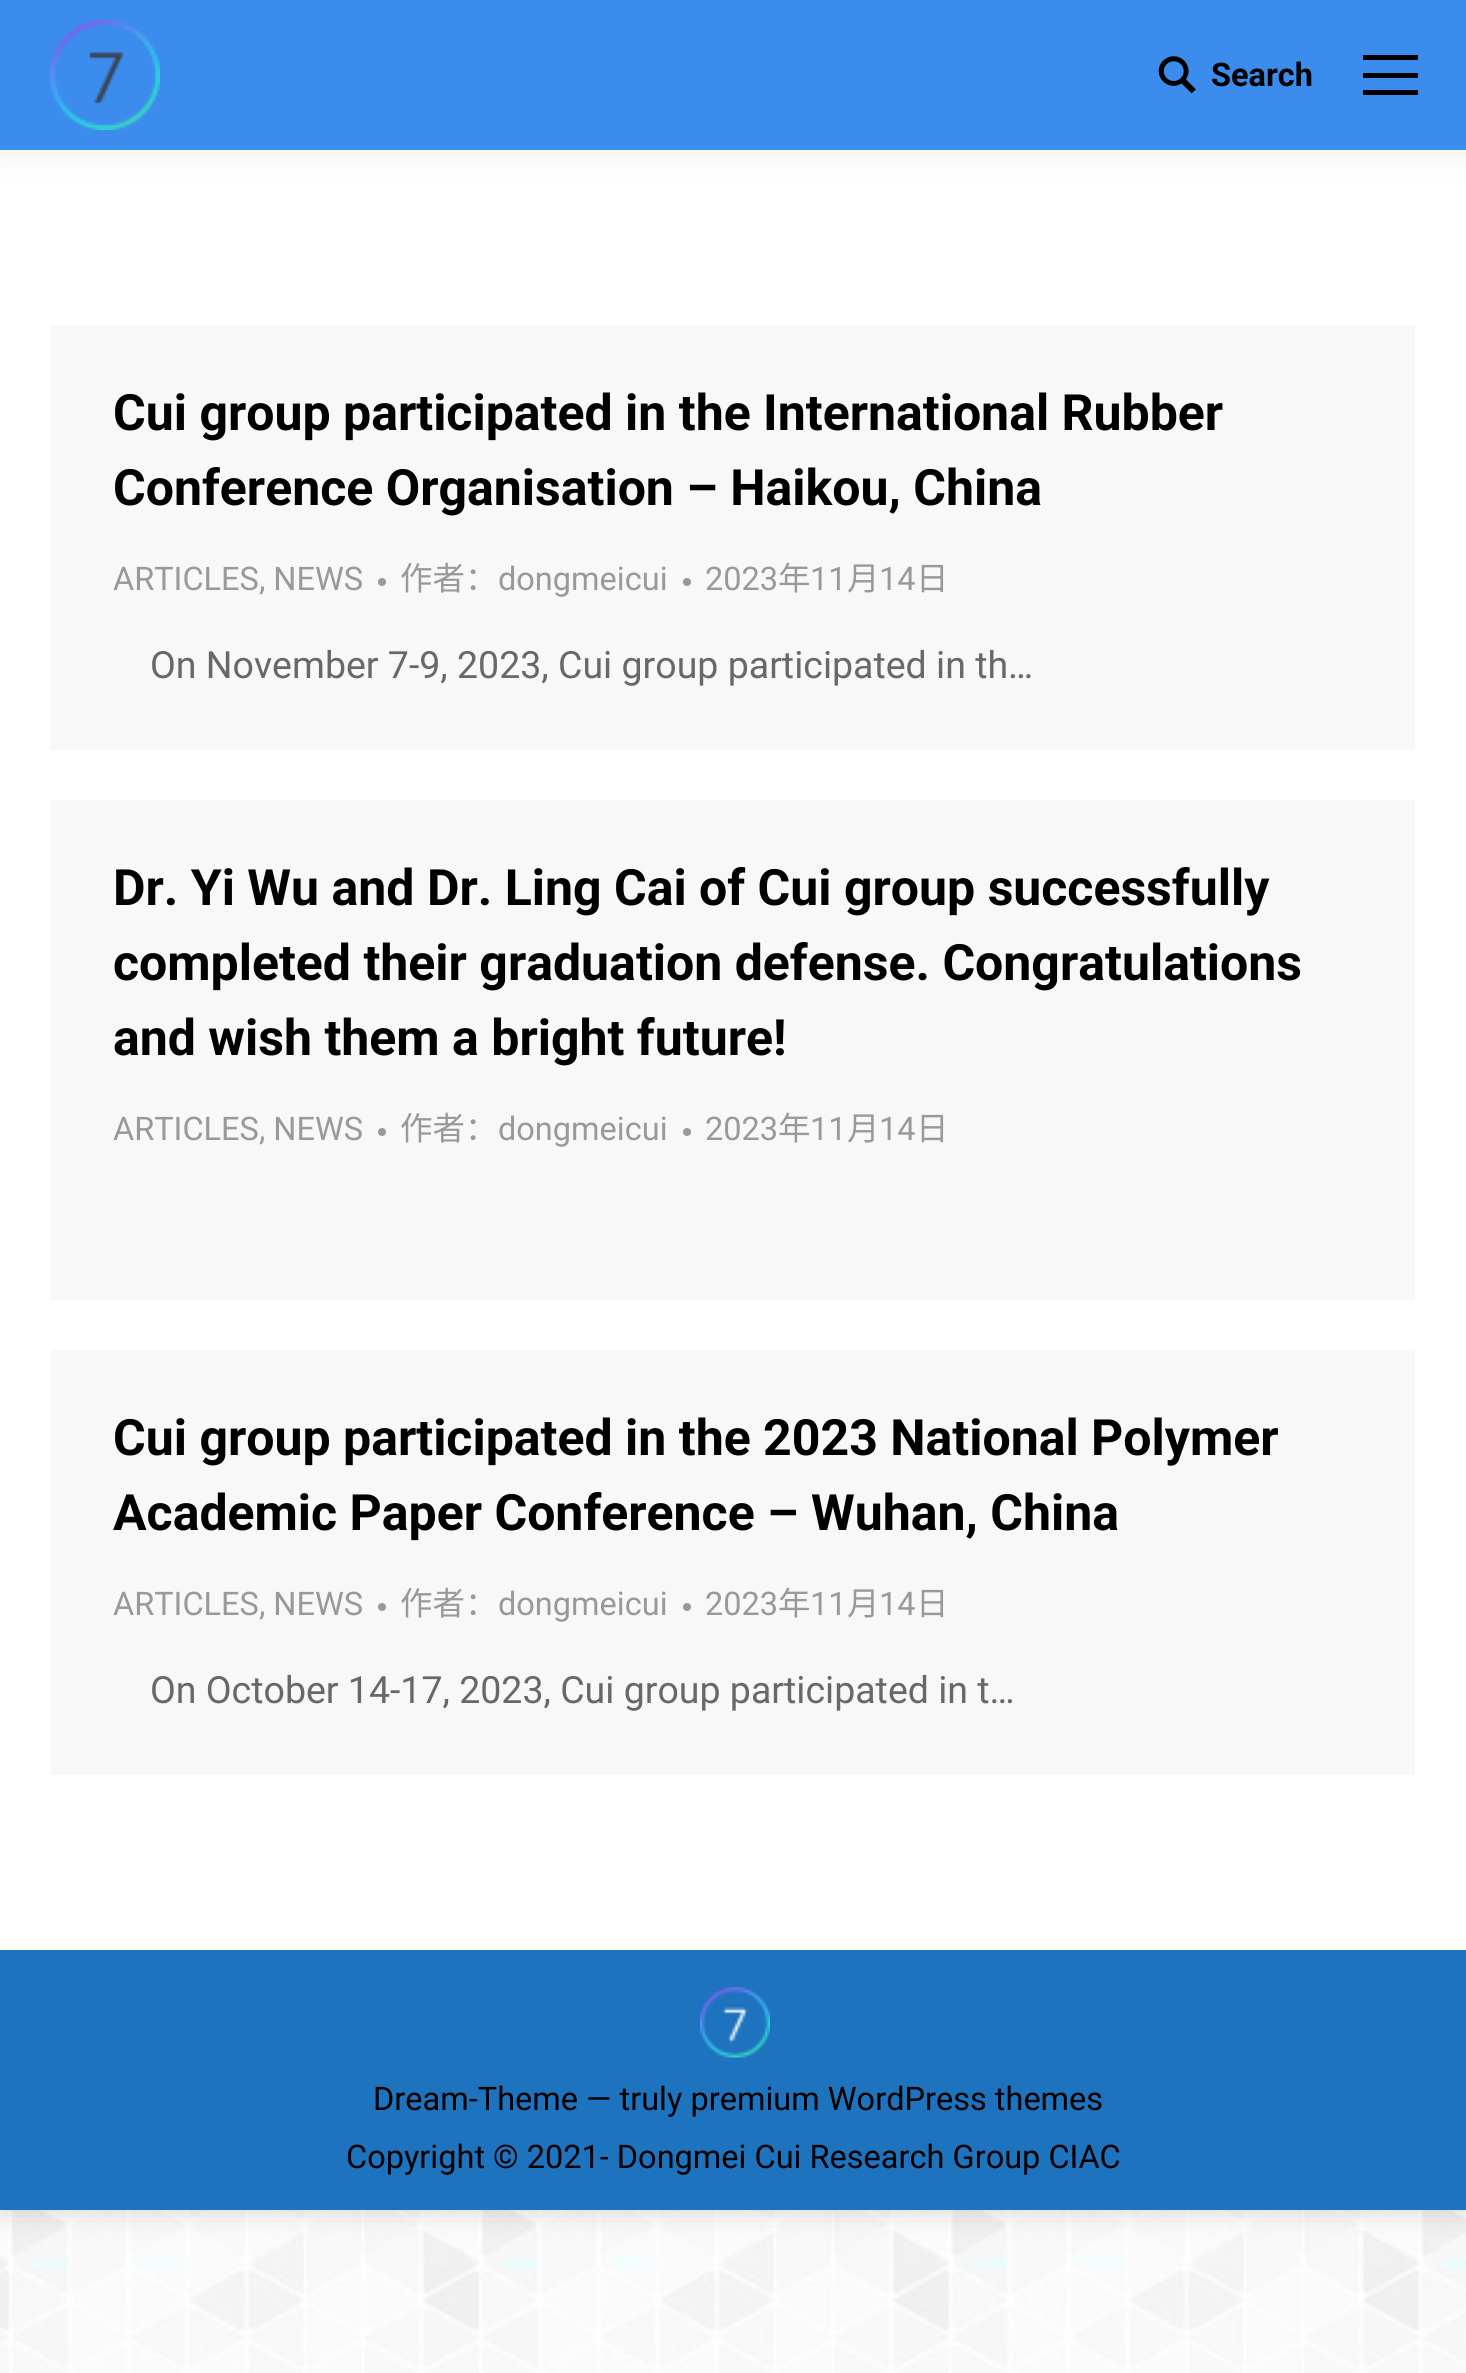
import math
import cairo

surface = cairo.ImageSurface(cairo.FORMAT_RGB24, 1466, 2373)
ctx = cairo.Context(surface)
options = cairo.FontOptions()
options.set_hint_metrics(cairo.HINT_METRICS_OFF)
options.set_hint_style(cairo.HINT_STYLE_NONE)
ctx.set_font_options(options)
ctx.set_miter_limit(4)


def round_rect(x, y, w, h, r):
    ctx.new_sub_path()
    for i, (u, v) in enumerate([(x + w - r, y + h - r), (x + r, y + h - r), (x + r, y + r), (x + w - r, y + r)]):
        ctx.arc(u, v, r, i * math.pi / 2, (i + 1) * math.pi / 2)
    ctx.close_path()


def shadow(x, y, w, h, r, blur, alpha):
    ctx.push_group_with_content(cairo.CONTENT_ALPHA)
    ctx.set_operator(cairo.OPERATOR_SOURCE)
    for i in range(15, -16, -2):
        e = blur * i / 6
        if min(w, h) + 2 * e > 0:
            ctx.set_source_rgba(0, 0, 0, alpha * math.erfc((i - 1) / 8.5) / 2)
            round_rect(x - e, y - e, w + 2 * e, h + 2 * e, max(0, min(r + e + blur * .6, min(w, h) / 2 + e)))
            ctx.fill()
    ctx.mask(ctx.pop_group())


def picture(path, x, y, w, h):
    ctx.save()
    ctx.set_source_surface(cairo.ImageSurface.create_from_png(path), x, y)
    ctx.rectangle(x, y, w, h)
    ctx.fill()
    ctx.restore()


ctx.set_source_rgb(1, 1, 1)
ctx.paint()
picture("img1.png", 0, 2210, 1466, 163)
ctx.set_source_rgb(0, 0, 0)
shadow(0, 0, 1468, 2210, 0, 15, 0.15)
ctx.set_source_rgb(1, 1, 1)
ctx.rectangle(0, 150, 1466, 1800)
ctx.fill()
ctx.set_source_rgb(0, 0, 0)
shadow(-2, -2, 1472, 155, 0, 19, 0.07)
ctx.set_source_rgb(0.231, 0.549, 0.929)
ctx.rectangle(0, 0, 1466, 150)
ctx.fill()
picture("img2.png", 50, 20, 110, 110)
picture("img3.png", 1158, 56, 38, 38)
ctx.select_font_face("Roboto", cairo.FONT_SLANT_NORMAL, cairo.FONT_WEIGHT_BOLD)
ctx.set_font_size(32.5)
ctx.set_source_rgb(0, 0, 0)
ctx.move_to(1211, 86)
ctx.show_text("Search")
ctx.rectangle(1363, 73, 55, 5)
ctx.fill()
ctx.rectangle(1363, 55, 55, 5)
ctx.fill()
ctx.rectangle(1363, 90, 55, 5)
ctx.fill()
ctx.set_source_rgb(0.969, 0.969, 0.969)
ctx.rectangle(50, 325, 1365, 425)
ctx.fill()
ctx.set_font_size(50)
ctx.set_source_rgb(0, 0, 0)
ctx.move_to(113, 430)
ctx.show_text("Cui group participated in the International Rubber")
ctx.move_to(113, 505)
ctx.show_text("Conference Organisation – Haikou, China")
ctx.select_font_face("Roboto")
ctx.set_font_size(32.5)
ctx.set_source_rgb(0.6, 0.6, 0.6)
ctx.move_to(113, 590)
ctx.show_text("ARTICLES, NEWS")
ctx.new_path()
ctx.arc(382, 582, 4, 0, 2 * math.pi)
ctx.fill()
ctx.select_font_face("Noto Sans CJK SC")
ctx.move_to(400, 590)
ctx.show_text("作者：")
ctx.select_font_face("Roboto")
ctx.move_to(498, 590)
ctx.show_text("dongmeicui")
ctx.new_path()
ctx.arc(687, 582, 4, 0, 2 * math.pi)
ctx.fill()
ctx.move_to(705, 590)
ctx.show_text("2023")
ctx.select_font_face("Noto Sans CJK SC")
ctx.move_to(778, 590)
ctx.show_text("年")
ctx.select_font_face("Roboto")
ctx.move_to(810, 590)
ctx.show_text("11")
ctx.select_font_face("Noto Sans CJK SC")
ctx.move_to(847, 590)
ctx.show_text("月")
ctx.select_font_face("Roboto")
ctx.move_to(879, 590)
ctx.show_text("14")
ctx.select_font_face("Noto Sans CJK SC")
ctx.move_to(916, 590)
ctx.show_text("日")
ctx.select_font_face("Roboto")
ctx.set_font_size(37.5)
ctx.set_source_rgb(0.408, 0.408, 0.408)
ctx.move_to(150, 678)
ctx.show_text("On November 7-9, 2023, Cui group participated in th…")
ctx.set_source_rgb(0.969, 0.969, 0.969)
ctx.rectangle(50, 800, 1365, 500)
ctx.fill()
ctx.select_font_face("Roboto", cairo.FONT_SLANT_NORMAL, cairo.FONT_WEIGHT_BOLD)
ctx.set_font_size(50)
ctx.set_source_rgb(0, 0, 0)
ctx.move_to(113, 905)
ctx.show_text("Dr. Yi Wu and Dr. Ling Cai of Cui group successfully")
ctx.move_to(113, 980)
ctx.show_text("completed their graduation defense. Congratulations")
ctx.move_to(113, 1055)
ctx.show_text("and wish them a bright future!")
ctx.select_font_face("Roboto")
ctx.set_font_size(32.5)
ctx.set_source_rgb(0.6, 0.6, 0.6)
ctx.move_to(113, 1140)
ctx.show_text("ARTICLES, NEWS")
ctx.new_path()
ctx.arc(382, 1132, 4, 0, 2 * math.pi)
ctx.fill()
ctx.select_font_face("Noto Sans CJK SC")
ctx.move_to(400, 1140)
ctx.show_text("作者：")
ctx.select_font_face("Roboto")
ctx.move_to(498, 1140)
ctx.show_text("dongmeicui")
ctx.new_path()
ctx.arc(687, 1132, 4, 0, 2 * math.pi)
ctx.fill()
ctx.move_to(705, 1140)
ctx.show_text("2023")
ctx.select_font_face("Noto Sans CJK SC")
ctx.move_to(778, 1140)
ctx.show_text("年")
ctx.select_font_face("Roboto")
ctx.move_to(810, 1140)
ctx.show_text("11")
ctx.select_font_face("Noto Sans CJK SC")
ctx.move_to(847, 1140)
ctx.show_text("月")
ctx.select_font_face("Roboto")
ctx.move_to(879, 1140)
ctx.show_text("14")
ctx.select_font_face("Noto Sans CJK SC")
ctx.move_to(916, 1140)
ctx.show_text("日")
ctx.set_source_rgb(0.969, 0.969, 0.969)
ctx.rectangle(50, 1350, 1365, 425)
ctx.fill()
ctx.select_font_face("Roboto", cairo.FONT_SLANT_NORMAL, cairo.FONT_WEIGHT_BOLD)
ctx.set_font_size(50)
ctx.set_source_rgb(0, 0, 0)
ctx.move_to(113, 1455)
ctx.show_text("Cui group participated in the 2023 National Polymer")
ctx.move_to(113, 1530)
ctx.show_text("Academic Paper Conference – Wuhan, China")
ctx.select_font_face("Roboto")
ctx.set_font_size(32.5)
ctx.set_source_rgb(0.6, 0.6, 0.6)
ctx.move_to(113, 1615)
ctx.show_text("ARTICLES, NEWS")
ctx.new_path()
ctx.arc(382, 1607, 4, 0, 2 * math.pi)
ctx.fill()
ctx.select_font_face("Noto Sans CJK SC")
ctx.move_to(400, 1615)
ctx.show_text("作者：")
ctx.select_font_face("Roboto")
ctx.move_to(498, 1615)
ctx.show_text("dongmeicui")
ctx.new_path()
ctx.arc(687, 1607, 4, 0, 2 * math.pi)
ctx.fill()
ctx.move_to(705, 1615)
ctx.show_text("2023")
ctx.select_font_face("Noto Sans CJK SC")
ctx.move_to(778, 1615)
ctx.show_text("年")
ctx.select_font_face("Roboto")
ctx.move_to(810, 1615)
ctx.show_text("11")
ctx.select_font_face("Noto Sans CJK SC")
ctx.move_to(847, 1615)
ctx.show_text("月")
ctx.select_font_face("Roboto")
ctx.move_to(879, 1615)
ctx.show_text("14")
ctx.select_font_face("Noto Sans CJK SC")
ctx.move_to(916, 1615)
ctx.show_text("日")
ctx.select_font_face("Roboto")
ctx.set_font_size(37.5)
ctx.set_source_rgb(0.408, 0.408, 0.408)
ctx.move_to(150, 1703)
ctx.show_text("On October 14-17, 2023, Cui group participated in t…")
ctx.set_source_rgb(0.118, 0.451, 0.745)
ctx.rectangle(0, 1950, 1466, 260)
ctx.fill()
picture("img4.png", 700, 1987, 70, 71)
ctx.set_font_size(32.5)
ctx.set_source_rgb(0, 0, 0)
ctx.move_to(373, 2110)
ctx.show_text("Dream-Theme — truly premium WordPress themes")
ctx.move_to(346, 2168)
ctx.show_text("Copyright © 2021- Dongmei Cui Research Group CIAC")
surface.write_to_png("page.png")
